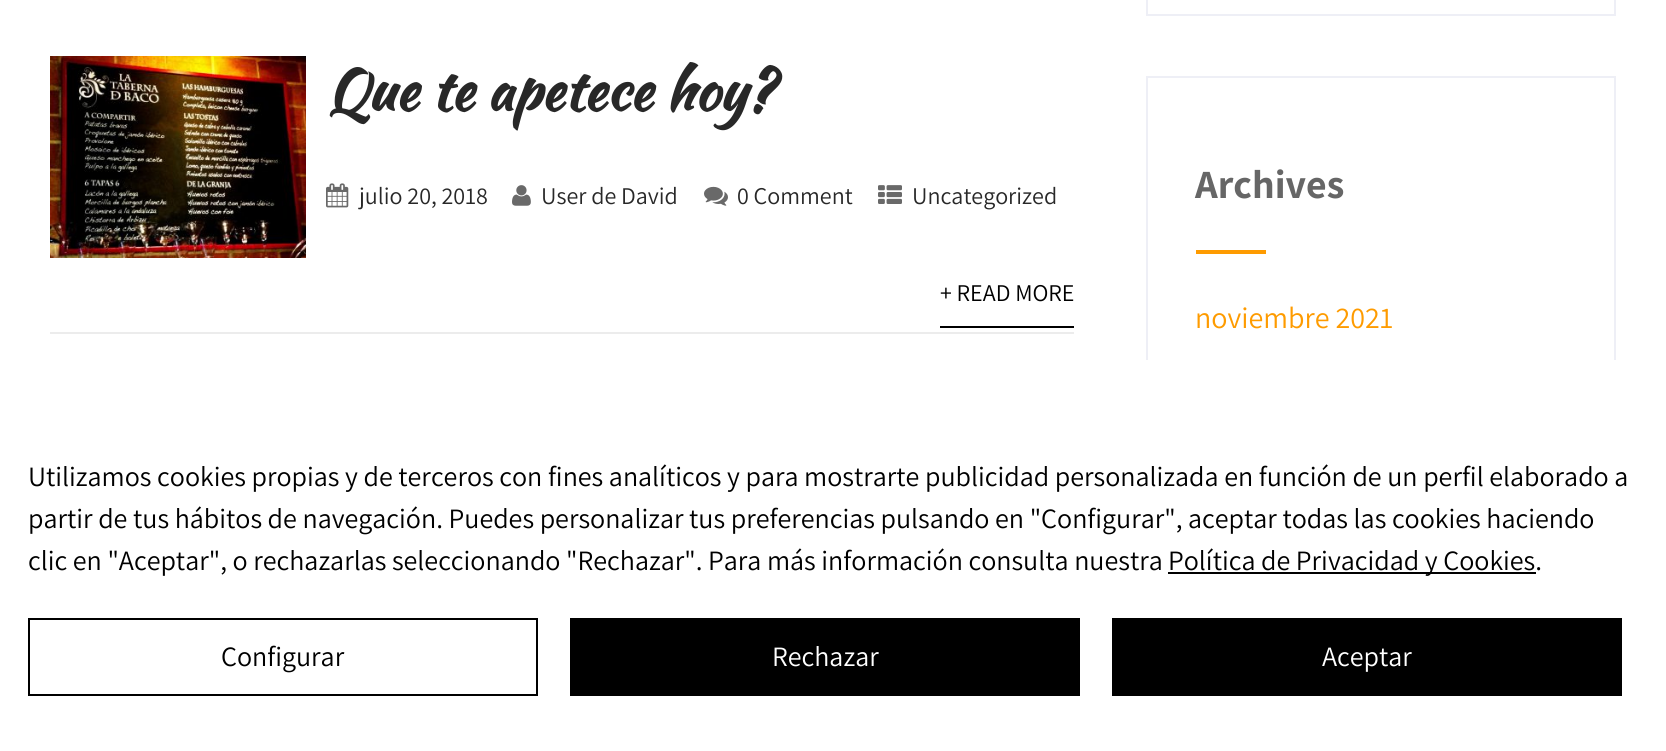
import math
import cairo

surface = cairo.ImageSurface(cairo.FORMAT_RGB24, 1666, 751)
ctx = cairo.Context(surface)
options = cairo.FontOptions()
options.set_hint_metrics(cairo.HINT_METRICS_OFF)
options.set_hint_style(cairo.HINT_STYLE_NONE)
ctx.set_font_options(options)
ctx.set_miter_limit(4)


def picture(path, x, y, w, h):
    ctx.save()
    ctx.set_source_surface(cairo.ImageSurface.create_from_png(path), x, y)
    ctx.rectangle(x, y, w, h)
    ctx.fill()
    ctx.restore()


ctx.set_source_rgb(1, 1, 1)
ctx.paint()
picture("img1.png", 50, 56, 256, 202)
ctx.select_font_face("Kaushan Script", cairo.FONT_SLANT_NORMAL, cairo.FONT_WEIGHT_BOLD)
ctx.set_font_size(56)
ctx.set_source_rgb(0.157, 0.157, 0.157)
ctx.move_to(327, 110)
ctx.show_text("Que te apetece hoy?")
picture("img2.png", 326, 183, 23, 25)
ctx.select_font_face("Assistant")
ctx.set_font_size(24)
ctx.move_to(359, 204)
ctx.show_text("julio 20, 2018")
picture("img3.png", 512, 185, 19, 21)
ctx.move_to(541, 204)
ctx.show_text("User de David")
picture("img4.png", 704, 186, 24, 20)
ctx.move_to(737, 204)
ctx.show_text("0 Comment")
picture("img5.png", 878, 185, 24, 19)
ctx.move_to(912, 204)
ctx.show_text("Uncategorized")
ctx.set_source_rgb(0.922, 0.922, 0.922)
ctx.rectangle(50, 332, 1024, 2)
ctx.fill()
ctx.set_source_rgb(0, 0, 0)
ctx.move_to(940, 301)
ctx.show_text("+ READ MORE")
ctx.rectangle(940, 326, 134, 2)
ctx.fill()
ctx.rectangle(1147, -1, 468, 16)
ctx.set_source_rgb(0.933, 0.937, 0.961)
ctx.stroke()
ctx.rectangle(1147, 77, 468, 522)
ctx.stroke()
ctx.select_font_face("Assistant", cairo.FONT_SLANT_NORMAL, cairo.FONT_WEIGHT_BOLD)
ctx.set_font_size(40)
ctx.set_source_rgb(0.4, 0.4, 0.4)
ctx.move_to(1195, 198)
ctx.show_text("Archives")
ctx.set_source_rgb(0.996, 0.608, 0)
ctx.rectangle(1196, 250, 70, 4)
ctx.fill()
ctx.select_font_face("Assistant")
ctx.set_font_size(30)
ctx.move_to(1195, 328)
ctx.show_text("noviembre 2021")
ctx.set_source_rgb(1, 1, 1)
ctx.rectangle(1146, 360, 470, 240)
ctx.fill()
ctx.set_font_size(28)
ctx.set_source_rgb(0, 0, 0)
ctx.move_to(28, 486)
ctx.show_text("Utilizamos cookies propias y de terceros con fines analíticos y para mostrarte publicidad personalizada en función de un perfil elaborado a")
ctx.move_to(28, 528)
ctx.show_text("partir de tus hábitos de navegación. Puedes personalizar tus preferencias pulsando en \"Configurar\", aceptar todas las cookies haciendo")
ctx.move_to(28, 570)
ctx.show_text("clic en \"Aceptar\", o rechazarlas seleccionando \"Rechazar\". Para más información consulta nuestra")
ctx.rectangle(1168, 572, 368, 2)
ctx.fill()
ctx.move_to(1168, 570)
ctx.show_text("Política de Privacidad y Cookies.")
ctx.rectangle(29, 619, 508, 76)
ctx.stroke()
ctx.move_to(221, 666)
ctx.show_text("Configurar")
ctx.rectangle(570, 618, 510, 78)
ctx.fill()
ctx.set_source_rgb(1, 1, 1)
ctx.move_to(772, 666)
ctx.show_text("Rechazar")
ctx.set_source_rgb(0, 0, 0)
ctx.rectangle(1112, 618, 510, 78)
ctx.fill()
ctx.set_source_rgb(1, 1, 1)
ctx.move_to(1322, 666)
ctx.show_text("Aceptar")
surface.write_to_png("page.png")
